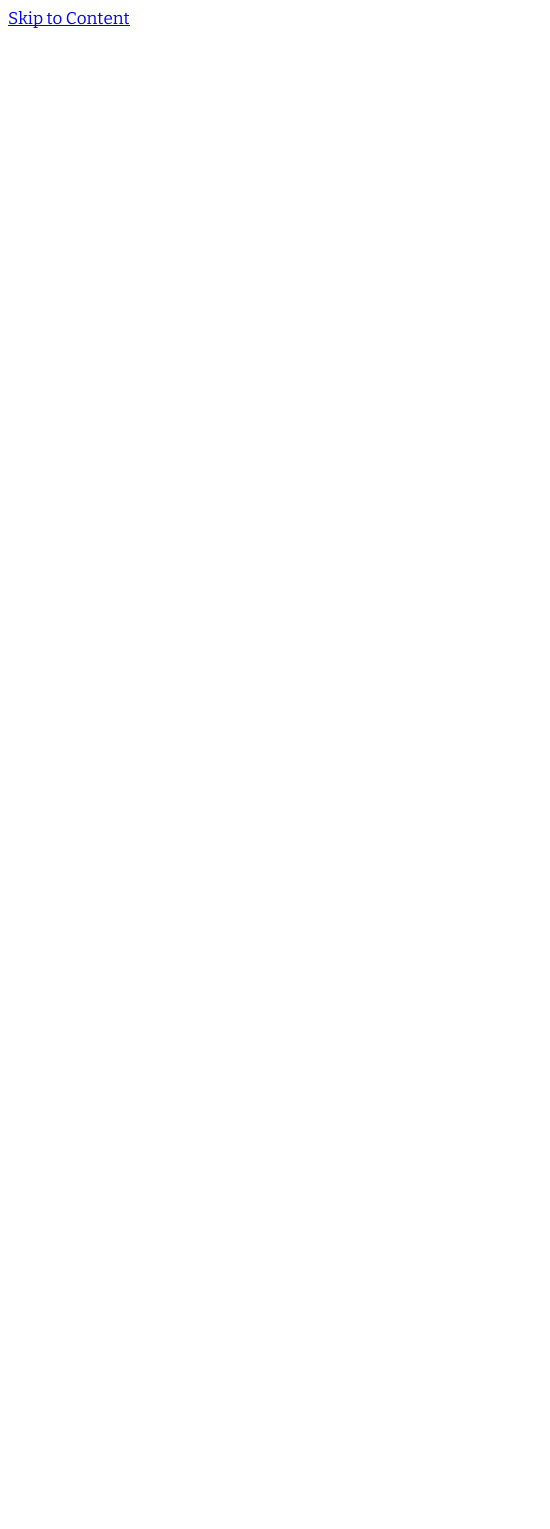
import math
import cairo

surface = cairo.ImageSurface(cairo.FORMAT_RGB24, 550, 1529)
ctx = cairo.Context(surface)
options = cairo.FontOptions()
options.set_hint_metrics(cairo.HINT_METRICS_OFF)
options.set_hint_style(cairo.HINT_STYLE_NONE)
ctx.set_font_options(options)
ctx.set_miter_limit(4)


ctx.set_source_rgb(1, 1, 1)
ctx.paint()
ctx.set_source_rgb(0, 0, 0.933)
ctx.rectangle(8, 25, 122, 1)
ctx.fill()
ctx.select_font_face("Bitter")
ctx.set_font_size(17)
ctx.move_to(8, 24)
ctx.show_text("Skip to Content")
surface.write_to_png("page.png")
